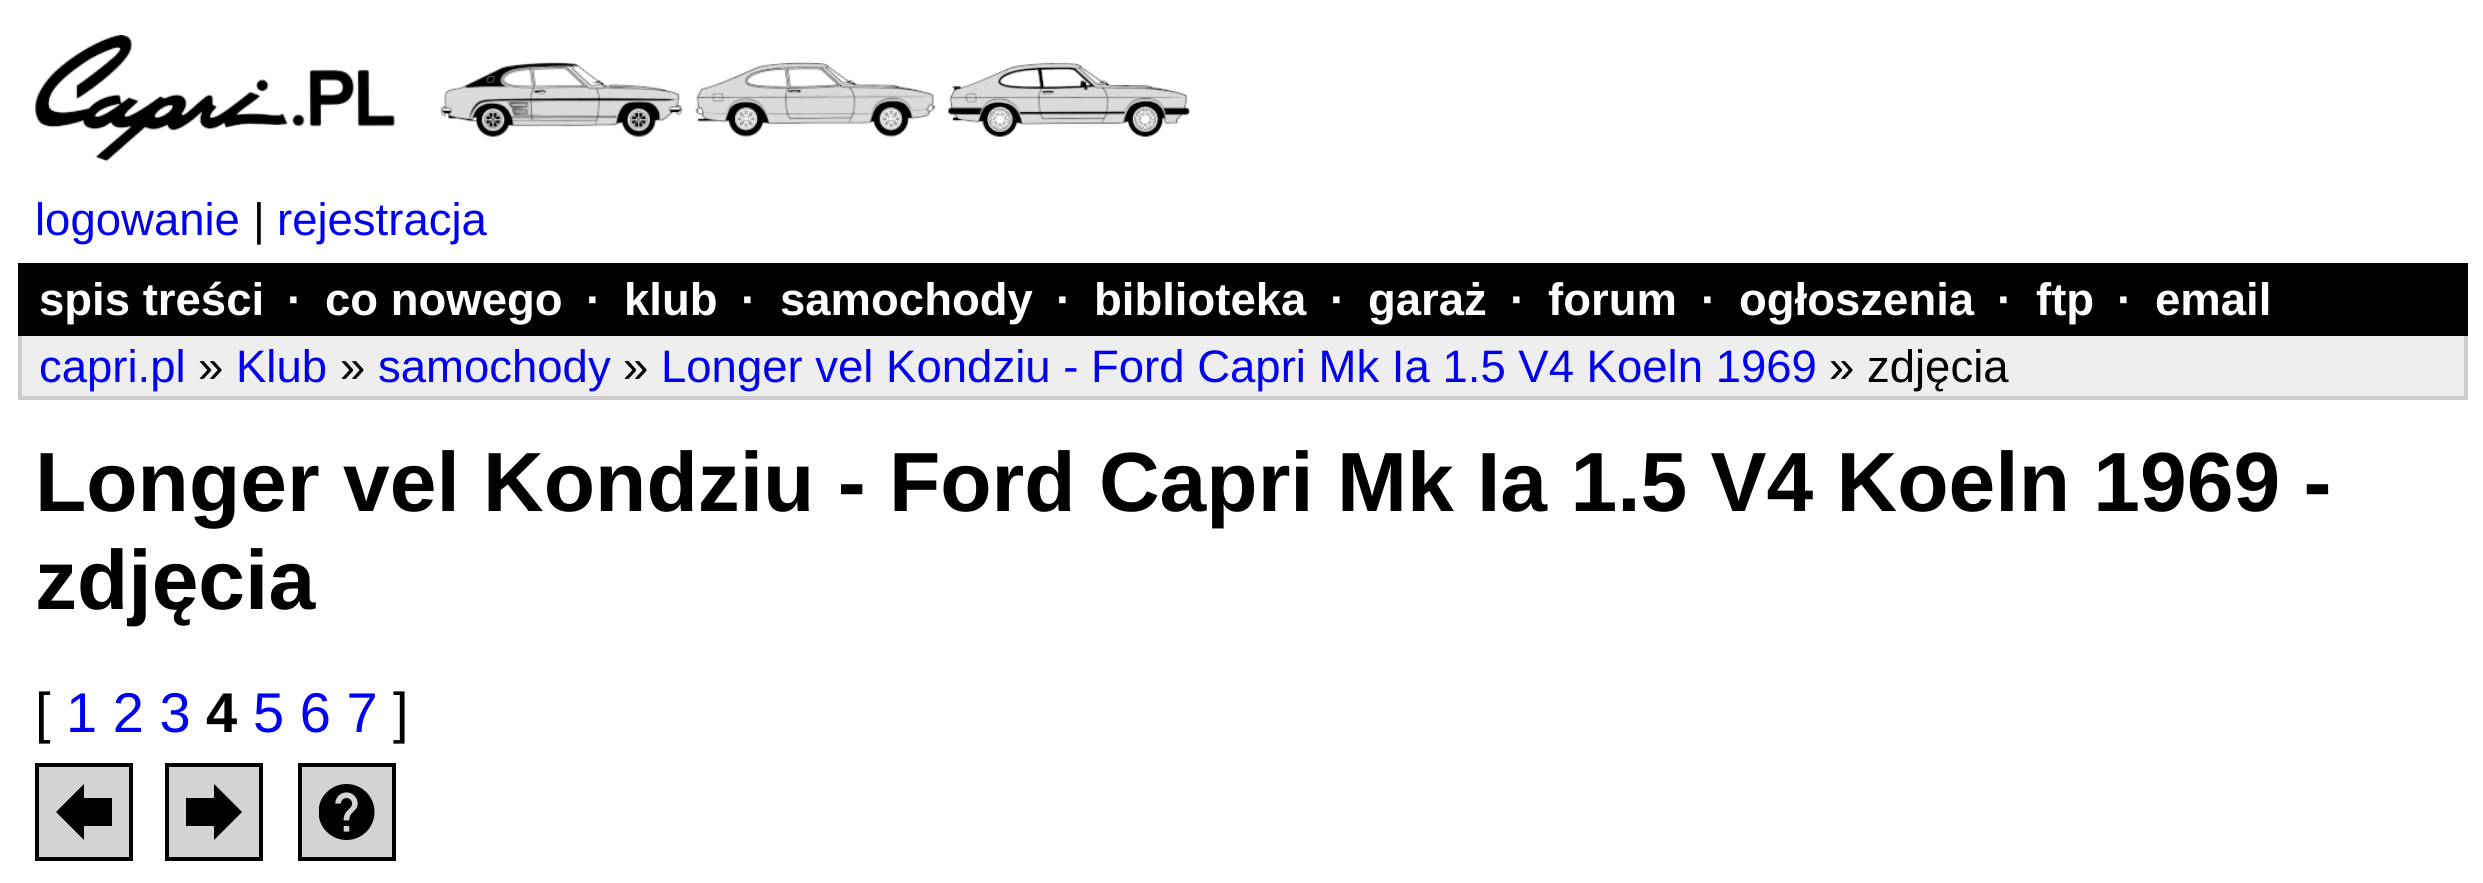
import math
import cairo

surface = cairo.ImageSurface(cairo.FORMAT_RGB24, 2483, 883)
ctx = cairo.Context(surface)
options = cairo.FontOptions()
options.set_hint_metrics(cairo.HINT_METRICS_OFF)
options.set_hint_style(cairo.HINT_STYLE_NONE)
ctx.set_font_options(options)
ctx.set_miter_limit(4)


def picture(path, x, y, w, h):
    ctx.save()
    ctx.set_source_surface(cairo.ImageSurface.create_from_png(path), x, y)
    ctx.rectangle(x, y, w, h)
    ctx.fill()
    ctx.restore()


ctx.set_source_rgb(1, 1, 1)
ctx.paint()
picture("img1.png", 35, 35, 1155, 126)
ctx.select_font_face("Liberation Sans")
ctx.set_font_size(45.5)
ctx.set_source_rgb(0, 0, 0.933)
ctx.move_to(35, 235)
ctx.show_text("logowanie")
ctx.set_source_rgb(0, 0, 0)
ctx.move_to(253, 235)
ctx.show_text("|")
ctx.set_source_rgb(0, 0, 0.933)
ctx.move_to(277, 235)
ctx.show_text("rejestracja")
ctx.set_source_rgb(0, 0, 0)
ctx.rectangle(18, 263, 2450, 73)
ctx.fill()
ctx.select_font_face("Liberation Sans", cairo.FONT_SLANT_NORMAL, cairo.FONT_WEIGHT_BOLD)
ctx.set_source_rgb(1, 1, 1)
ctx.move_to(39, 315)
ctx.show_text("spis treści")
ctx.move_to(287, 315)
ctx.show_text("·")
ctx.move_to(325, 315)
ctx.show_text("co nowego")
ctx.move_to(586, 315)
ctx.show_text("·")
ctx.move_to(624, 315)
ctx.show_text("klub")
ctx.move_to(741, 315)
ctx.show_text("·")
ctx.move_to(780, 315)
ctx.show_text("samochody")
ctx.move_to(1056, 315)
ctx.show_text("·")
ctx.move_to(1094, 315)
ctx.show_text("biblioteka")
ctx.move_to(1330, 315)
ctx.show_text("·")
ctx.move_to(1368, 315)
ctx.show_text("garaż")
ctx.move_to(1510, 315)
ctx.show_text("·")
ctx.move_to(1548, 315)
ctx.show_text("forum")
ctx.move_to(1701, 315)
ctx.show_text("·")
ctx.move_to(1739, 315)
ctx.show_text("ogłoszenia")
ctx.move_to(1997, 315)
ctx.show_text("·")
ctx.move_to(2036, 315)
ctx.show_text("ftp")
ctx.move_to(2117, 315)
ctx.show_text("·")
ctx.move_to(2155, 315)
ctx.show_text("email")
ctx.set_source_rgb(0.933, 0.933, 0.933)
ctx.rectangle(22, 336, 2442, 60)
ctx.fill()
ctx.set_source_rgb(0.8, 0.8, 0.8)
ctx.rectangle(2464, 336, 4, 63)
ctx.fill()
ctx.rectangle(18, 396, 2450, 4)
ctx.fill()
ctx.rectangle(18, 336, 4, 63)
ctx.fill()
ctx.select_font_face("Liberation Sans")
ctx.set_source_rgb(0, 0, 0.933)
ctx.move_to(39, 382)
ctx.show_text("capri.pl")
ctx.set_source_rgb(0, 0, 0)
ctx.move_to(198, 382)
ctx.show_text("»")
ctx.set_source_rgb(0, 0, 0.933)
ctx.move_to(236, 382)
ctx.show_text("Klub")
ctx.set_source_rgb(0, 0, 0)
ctx.move_to(340, 382)
ctx.show_text("»")
ctx.set_source_rgb(0, 0, 0.933)
ctx.move_to(378, 382)
ctx.show_text("samochody")
ctx.set_source_rgb(0, 0, 0)
ctx.move_to(623, 382)
ctx.show_text("»")
ctx.set_source_rgb(0, 0, 0.933)
ctx.move_to(661, 382)
ctx.show_text("Longer vel Kondziu - Ford Capri Mk Ia 1.5 V4 Koeln 1969")
ctx.set_source_rgb(0, 0, 0)
ctx.move_to(1829, 382)
ctx.show_text("» zdjęcia")
ctx.select_font_face("Liberation Sans", cairo.FONT_SLANT_NORMAL, cairo.FONT_WEIGHT_BOLD)
ctx.set_font_size(84)
ctx.move_to(35, 511)
ctx.show_text("Longer vel Kondziu - Ford Capri Mk Ia 1.5 V4 Koeln 1969 -")
ctx.move_to(35, 609)
ctx.show_text("zdjęcia")
ctx.select_font_face("Liberation Sans")
ctx.set_font_size(56)
ctx.move_to(35, 732)
ctx.show_text("[")
ctx.set_source_rgb(0, 0, 0.933)
ctx.move_to(66, 732)
ctx.show_text("1 2 3")
ctx.select_font_face("Liberation Sans", cairo.FONT_SLANT_NORMAL, cairo.FONT_WEIGHT_BOLD)
ctx.set_source_rgb(0, 0, 0)
ctx.move_to(206, 732)
ctx.show_text("4")
ctx.select_font_face("Liberation Sans")
ctx.set_source_rgb(0, 0, 0.933)
ctx.move_to(253, 732)
ctx.show_text("5 6 7")
ctx.set_source_rgb(0, 0, 0)
ctx.move_to(393, 732)
ctx.show_text("]")
ctx.set_source_rgb(0.827, 0.827, 0.827)
ctx.rectangle(37, 765, 94, 94)
ctx.fill_preserve()
ctx.set_source_rgb(0, 0, 0)
ctx.set_line_width(4)
ctx.stroke()
ctx.new_path()
ctx.move_to(84, 784)
ctx.line_to(56, 812)
ctx.line_to(84, 840)
ctx.line_to(84, 826)
ctx.line_to(112, 826)
ctx.line_to(112, 798)
ctx.line_to(84, 798)
ctx.close_path()
ctx.fill()
ctx.set_source_rgb(0.827, 0.827, 0.827)
ctx.rectangle(167, 765, 94, 94)
ctx.fill_preserve()
ctx.set_source_rgb(0, 0, 0)
ctx.stroke()
ctx.new_path()
ctx.move_to(214, 798)
ctx.line_to(214, 784)
ctx.line_to(242, 812)
ctx.line_to(214, 840)
ctx.line_to(214, 826)
ctx.line_to(186, 826)
ctx.line_to(186, 798)
ctx.close_path()
ctx.fill()
ctx.set_source_rgb(0.827, 0.827, 0.827)
ctx.rectangle(300, 765, 94, 94)
ctx.fill_preserve()
ctx.set_source_rgb(0, 0, 0)
ctx.stroke()
picture("img2.png", 319, 784, 56, 56)
surface.write_to_png("page.png")
